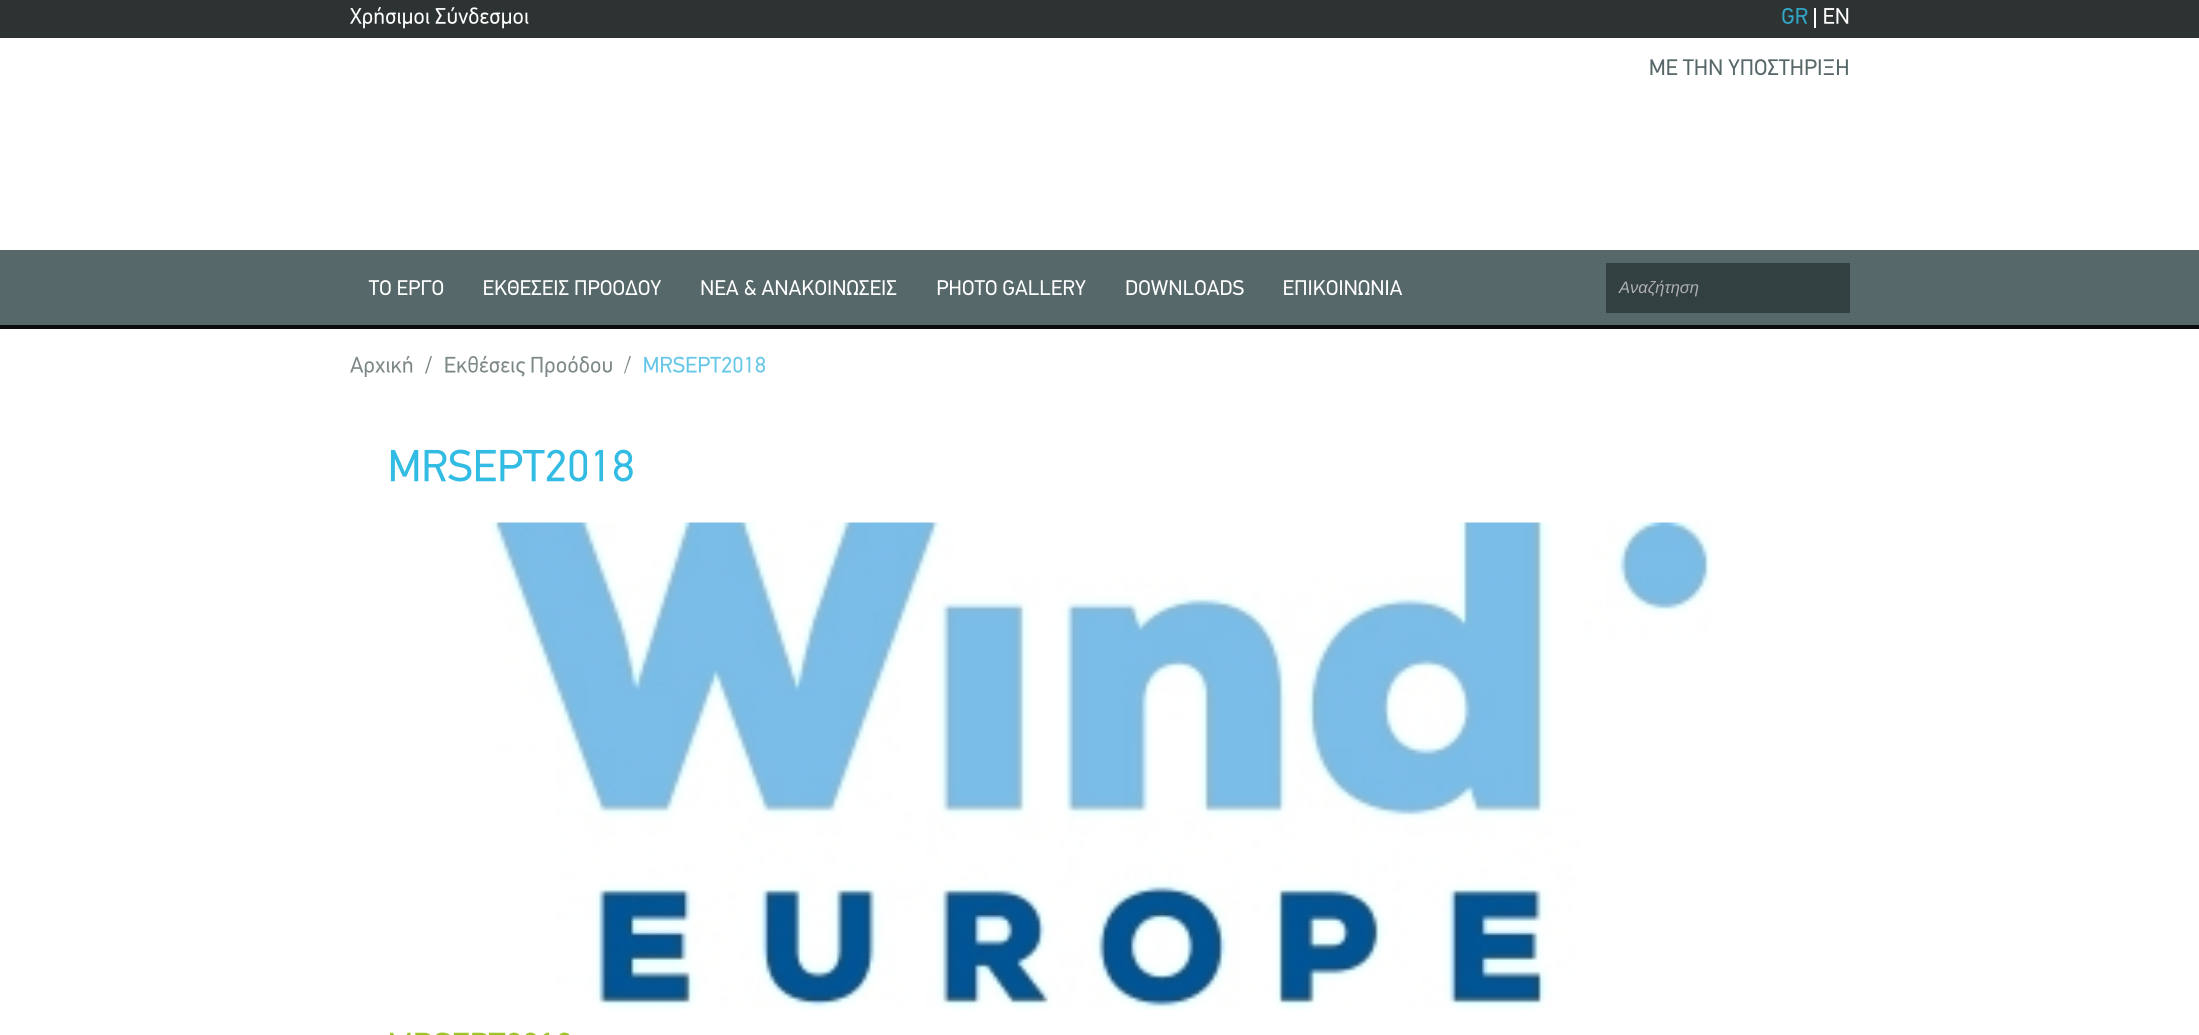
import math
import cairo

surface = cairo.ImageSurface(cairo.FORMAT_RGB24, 2199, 1035)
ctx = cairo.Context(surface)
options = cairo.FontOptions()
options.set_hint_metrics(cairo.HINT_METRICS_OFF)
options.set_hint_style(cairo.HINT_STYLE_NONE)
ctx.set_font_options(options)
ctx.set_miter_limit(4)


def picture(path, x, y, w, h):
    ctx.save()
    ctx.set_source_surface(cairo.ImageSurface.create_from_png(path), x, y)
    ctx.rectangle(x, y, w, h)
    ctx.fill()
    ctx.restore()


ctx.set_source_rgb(1, 1, 1)
ctx.paint()
ctx.set_source_rgb(0.176, 0.2, 0.2)
ctx.rectangle(0, 0, 2199, 38)
ctx.fill()
picture("img1.png", 350, 7, 179, 22)
picture("img2.png", 1782, 8, 26, 16)
ctx.set_source_rgb(1, 1, 1)
ctx.rectangle(1814, 8, 2, 20)
ctx.fill()
picture("img3.png", 1824, 8, 25, 16)
picture("img4.png", 1650, 59, 198, 17)
ctx.set_source_rgb(0.341, 0.408, 0.416)
ctx.rectangle(0, 250, 2199, 75)
ctx.fill()
ctx.set_source_rgb(0.043, 0.051, 0.051)
ctx.rectangle(0, 325, 2199, 4)
ctx.fill()
picture("img5.png", 368, 280, 76, 16)
picture("img6.png", 484, 280, 177, 16)
picture("img7.png", 701, 280, 196, 16)
picture("img8.png", 937, 280, 149, 16)
picture("img9.png", 1126, 280, 118, 16)
picture("img10.png", 1284, 280, 119, 16)
ctx.set_source_rgb(0.2, 0.251, 0.259)
ctx.rectangle(1606, 263, 244, 50)
ctx.fill()
ctx.select_font_face("Liberation Sans", cairo.FONT_SLANT_ITALIC)
ctx.set_font_size(16.5)
ctx.set_source_rgb(0.682, 0.686, 0.69)
ctx.move_to(1619, 293)
ctx.show_text("Αναζήτηση")
picture("img11.png", 350, 355, 63, 22)
ctx.set_source_rgb(0.49, 0.537, 0.533)
ctx.new_path()
ctx.move_to(426.5, 373.5)
ctx.line_to(425, 373.5)
ctx.line_to(430.5, 356)
ctx.line_to(432, 356)
ctx.close_path()
ctx.fill()
picture("img12.png", 445, 355, 167, 22)
ctx.new_path()
ctx.move_to(625, 373.5)
ctx.line_to(624, 373.5)
ctx.line_to(629.5, 356)
ctx.line_to(631, 356)
ctx.close_path()
ctx.fill()
picture("img13.png", 644, 356, 122, 17)
picture("img14.png", 390, 449, 243, 33)
picture("img15.png", 490, 522, 1223, 488)
picture("img16.png", 390, 1032, 180, 3)
surface.write_to_png("page.png")
